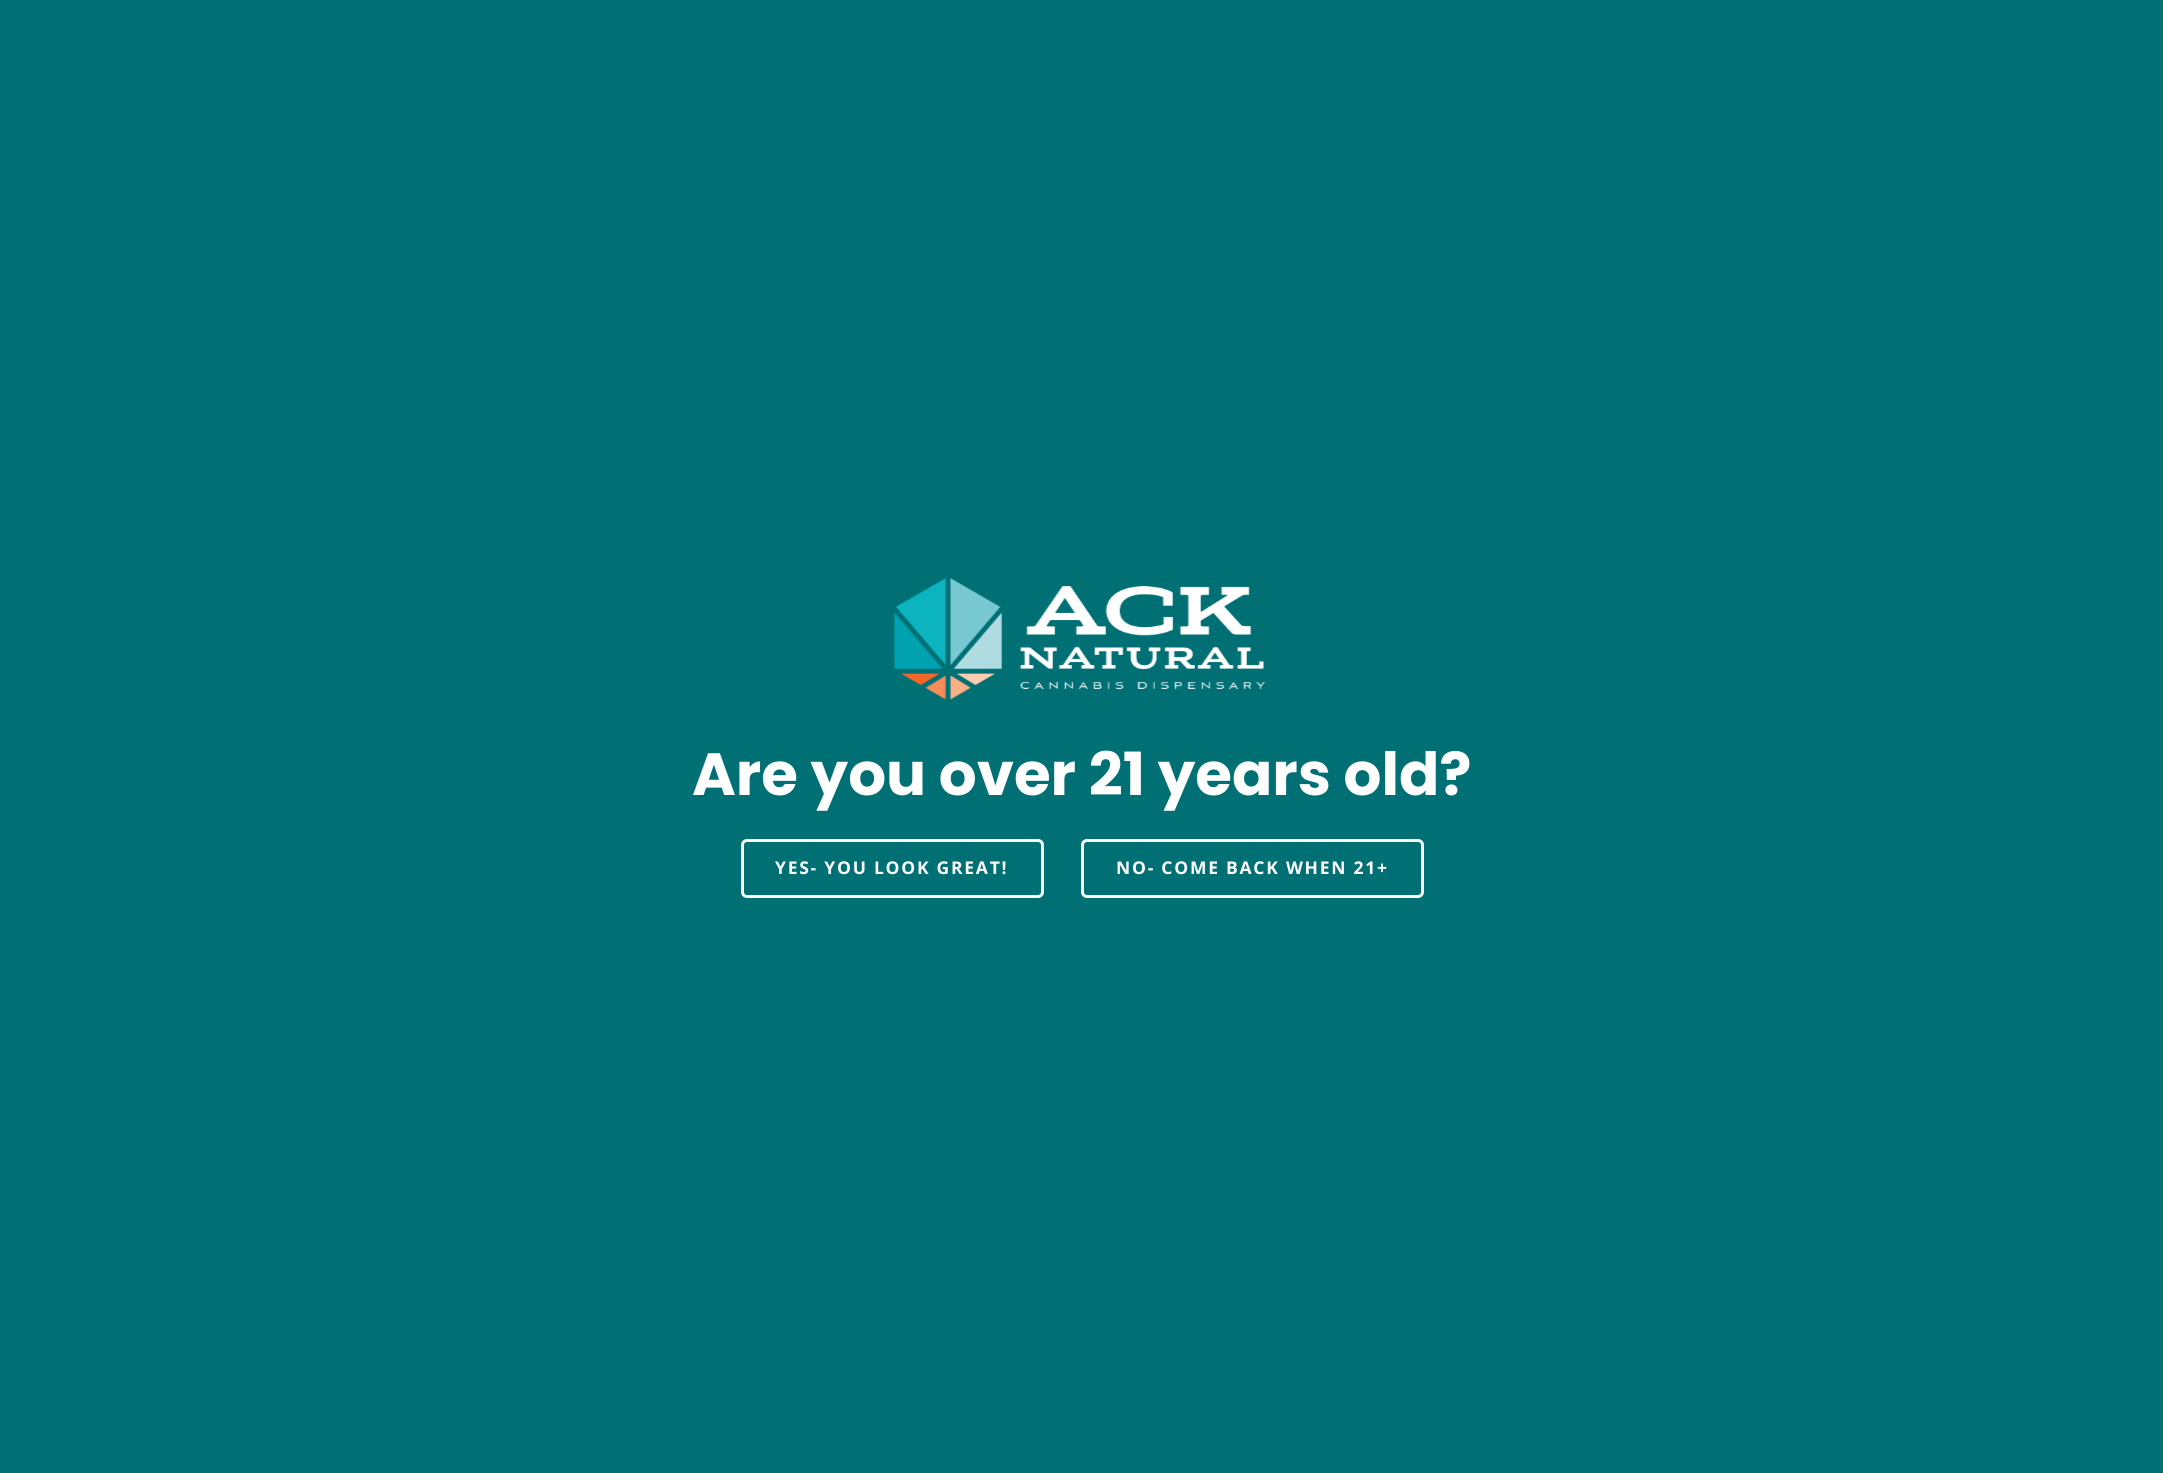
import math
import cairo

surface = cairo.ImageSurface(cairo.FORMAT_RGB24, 2163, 1473)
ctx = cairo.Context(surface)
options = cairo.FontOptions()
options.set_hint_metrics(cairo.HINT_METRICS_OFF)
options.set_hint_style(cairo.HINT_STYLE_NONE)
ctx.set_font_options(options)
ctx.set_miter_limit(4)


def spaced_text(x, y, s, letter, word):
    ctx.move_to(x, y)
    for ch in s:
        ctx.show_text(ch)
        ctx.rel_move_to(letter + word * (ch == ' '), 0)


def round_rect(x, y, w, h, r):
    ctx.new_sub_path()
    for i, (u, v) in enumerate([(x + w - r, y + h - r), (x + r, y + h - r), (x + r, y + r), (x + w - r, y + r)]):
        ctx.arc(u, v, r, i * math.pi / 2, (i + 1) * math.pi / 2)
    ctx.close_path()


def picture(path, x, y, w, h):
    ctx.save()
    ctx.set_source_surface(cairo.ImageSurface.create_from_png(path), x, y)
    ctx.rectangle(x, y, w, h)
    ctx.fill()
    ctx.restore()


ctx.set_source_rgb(0, 0.439, 0.459)
ctx.paint()
picture("img1.png", 893, 578, 373, 122)
ctx.select_font_face("Poppins", cairo.FONT_SLANT_NORMAL, cairo.FONT_WEIGHT_BOLD)
ctx.set_font_size(59.5)
ctx.set_source_rgb(1, 1, 1)
ctx.move_to(692, 795)
ctx.show_text("Are you over 21 years old?")
round_rect(742.5, 840.5, 300, 56, 4.5)
ctx.set_line_width(3)
ctx.stroke()
ctx.select_font_face("Open Sans", cairo.FONT_SLANT_NORMAL, cairo.FONT_WEIGHT_BOLD)
ctx.set_font_size(17.5)
spaced_text(775, 874, "YES- YOU LOOK GREAT!", 1.75, 0)
round_rect(1082.5, 840.5, 340, 56, 4.5)
ctx.stroke()
spaced_text(1116, 874, "NO- COME BACK WHEN 21+", 1.75, 0)
surface.write_to_png("page.png")
